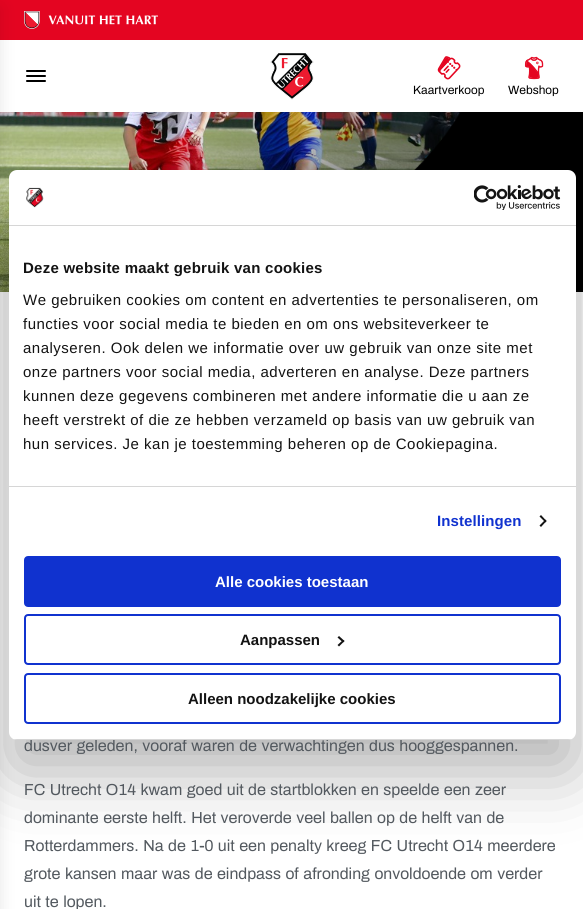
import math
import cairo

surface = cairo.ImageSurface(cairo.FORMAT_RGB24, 583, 909)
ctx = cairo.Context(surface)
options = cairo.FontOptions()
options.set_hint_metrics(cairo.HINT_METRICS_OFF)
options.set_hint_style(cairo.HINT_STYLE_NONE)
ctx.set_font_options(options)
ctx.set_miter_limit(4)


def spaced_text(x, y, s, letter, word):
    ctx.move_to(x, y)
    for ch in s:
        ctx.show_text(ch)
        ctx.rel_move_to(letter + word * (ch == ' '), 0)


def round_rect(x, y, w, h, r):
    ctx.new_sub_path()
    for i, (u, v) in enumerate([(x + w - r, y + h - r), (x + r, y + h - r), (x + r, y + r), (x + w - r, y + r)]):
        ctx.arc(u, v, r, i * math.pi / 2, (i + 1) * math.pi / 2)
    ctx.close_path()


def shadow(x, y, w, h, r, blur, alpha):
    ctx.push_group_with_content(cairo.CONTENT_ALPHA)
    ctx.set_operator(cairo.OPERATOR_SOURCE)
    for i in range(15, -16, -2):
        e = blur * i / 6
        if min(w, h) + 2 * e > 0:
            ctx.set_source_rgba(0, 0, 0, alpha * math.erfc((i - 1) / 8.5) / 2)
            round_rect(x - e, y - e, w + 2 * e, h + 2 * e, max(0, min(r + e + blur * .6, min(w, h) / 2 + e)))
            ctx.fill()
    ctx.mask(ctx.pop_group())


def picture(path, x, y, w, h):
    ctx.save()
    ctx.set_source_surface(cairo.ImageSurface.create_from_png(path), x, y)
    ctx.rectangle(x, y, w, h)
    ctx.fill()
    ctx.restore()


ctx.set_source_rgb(1, 1, 1)
ctx.paint()
ctx.set_source_rgb(0.894, 0.02, 0.129)
ctx.rectangle(0, 0, 583, 40)
ctx.fill()
picture("img1.png", 24, 11, 134, 18)
picture("img5.png", 0, 112, 461, 180)
ctx.set_source_rgb(0, 0, 0)
shadow(-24, 8, 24, 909, 0, 8, 0.1)
ctx.set_source_rgb(0, 0, 0)
round_rect(26, 75, 20, 2, 1)
ctx.fill()
round_rect(26, 70, 20, 2, 1)
ctx.fill()
round_rect(26, 80, 20, 2, 1)
ctx.fill()
picture("img2.png", 270, 53, 44, 47)
picture("img3.png", 437, 56, 24, 24)
ctx.select_font_face("Archivo")
ctx.set_font_size(12)
ctx.move_to(413, 94)
ctx.show_text("Kaartverkoop")
picture("img4.png", 524, 56, 20, 24)
ctx.move_to(508, 94)
ctx.show_text("Webshop")
picture("img6.png", 414, 112, 169, 180)
ctx.set_source_rgb(0, 0, 0)
shadow(9, 202, 567, 570, 8, 34, 0.3)
ctx.set_font_size(16)
ctx.set_source_rgb(0.325, 0.349, 0.373)
ctx.move_to(24, 751)
ctx.show_text("dusver geleden, vooraf waren de verwachtingen dus hooggespannen.")
ctx.set_source_rgb(1, 1, 1)
round_rect(9, 170, 567, 570, 8)
ctx.fill()
ctx.set_source_rgb(0.839, 0.839, 0.839)
ctx.rectangle(9, 225, 567, 1)
ctx.fill()
picture("img7.png", 26, 187, 18, 21)
picture("img8.png", 474, 185, 87, 25)
ctx.rectangle(9, 486, 567, 1)
ctx.fill()
ctx.select_font_face("Liberation Sans", cairo.FONT_SLANT_NORMAL, cairo.FONT_WEIGHT_BOLD)
ctx.set_font_size(15)
ctx.set_source_rgb(0.078, 0.078, 0.078)
spaced_text(23, 273, "Deze website maakt gebruik van cookies", 0.25, 0)
ctx.select_font_face("Liberation Sans")
spaced_text(23, 305, "We gebruiken cookies om content en advertenties te personaliseren, om", 0.5, 0)
spaced_text(23, 329, "functies voor social media te bieden en om ons websiteverkeer te", 0.5, 0)
spaced_text(23, 353, "analyseren. Ook delen we informatie over uw gebruik van onze site met", 0.5, 0)
spaced_text(23, 377, "onze partners voor social media, adverteren en analyse. Deze partners", 0.5, 0)
spaced_text(23, 401, "kunnen deze gegevens combineren met andere informatie die u aan ze", 0.5, 0)
spaced_text(23, 425, "heeft verstrekt of die ze hebben verzameld op basis van uw gebruik van", 0.5, 0)
spaced_text(23, 449, "hun services. Je kan je toestemming beheren op de Cookiepagina.", 0.5, 0)
ctx.select_font_face("Liberation Sans", cairo.FONT_SLANT_NORMAL, cairo.FONT_WEIGHT_BOLD)
ctx.set_source_rgb(0.063, 0.196, 0.812)
spaced_text(437, 526, "Instellingen", 0.1, 0)
ctx.set_source_rgb(0.078, 0.078, 0.078)
ctx.new_path()
ctx.move_to(541, 515)
ctx.line_to(546.5, 521)
ctx.line_to(545.5, 522.5)
ctx.line_to(539.5, 516.5)
ctx.close_path()
ctx.fill()
ctx.new_path()
ctx.move_to(545.5, 519.5)
ctx.line_to(546.5, 521)
ctx.line_to(541, 527)
ctx.line_to(539.5, 525.5)
ctx.close_path()
ctx.fill()
ctx.save()
round_rect(9, 170, 567, 570, 8)
ctx.clip()
ctx.set_source_rgb(0.839, 0.839, 0.839)
ctx.rectangle(9, 739, 567, 1)
ctx.fill()
ctx.restore()
ctx.set_source_rgb(0.063, 0.196, 0.812)
round_rect(25, 557, 535, 49, 3)
ctx.fill_preserve()
ctx.stroke()
ctx.set_source_rgb(1, 1, 1)
ctx.move_to(215, 587)
ctx.show_text("Alle cookies toestaan")
round_rect(25, 615, 535, 49, 3)
ctx.set_source_rgb(0.063, 0.196, 0.812)
ctx.stroke()
ctx.set_source_rgb(0.078, 0.078, 0.078)
ctx.move_to(240, 645)
ctx.show_text("Aanpassen")
ctx.new_path()
ctx.move_to(339, 636)
ctx.line_to(344.5, 641)
ctx.line_to(343, 642.5)
ctx.line_to(337.5, 637.5)
ctx.close_path()
ctx.fill()
ctx.new_path()
ctx.move_to(343, 640)
ctx.line_to(344.5, 641)
ctx.line_to(339, 646.5)
ctx.line_to(337.5, 645)
ctx.close_path()
ctx.fill()
round_rect(25, 674, 535, 49, 3)
ctx.set_source_rgb(0.063, 0.196, 0.812)
ctx.stroke()
ctx.set_source_rgb(0.078, 0.078, 0.078)
ctx.move_to(188, 704)
ctx.show_text("Alleen noodzakelijke cookies")
ctx.select_font_face("Archivo")
ctx.set_font_size(16)
ctx.set_source_rgb(0.325, 0.349, 0.373)
ctx.move_to(24, 795)
ctx.show_text("FC Utrecht O14 kwam goed uit de startblokken en speelde een zeer")
ctx.move_to(24, 823)
ctx.show_text("dominante eerste helft. Het veroverde veel ballen op de helft van de")
ctx.move_to(24, 851)
ctx.show_text("Rotterdammers. Na de 1-0 uit een penalty kreeg FC Utrecht O14 meerdere")
ctx.move_to(24, 879)
ctx.show_text("grote kansen maar was de eindpass of afronding onvoldoende om verder")
ctx.move_to(24, 907)
ctx.show_text("uit te lopen.")
surface.write_to_png("page.png")
